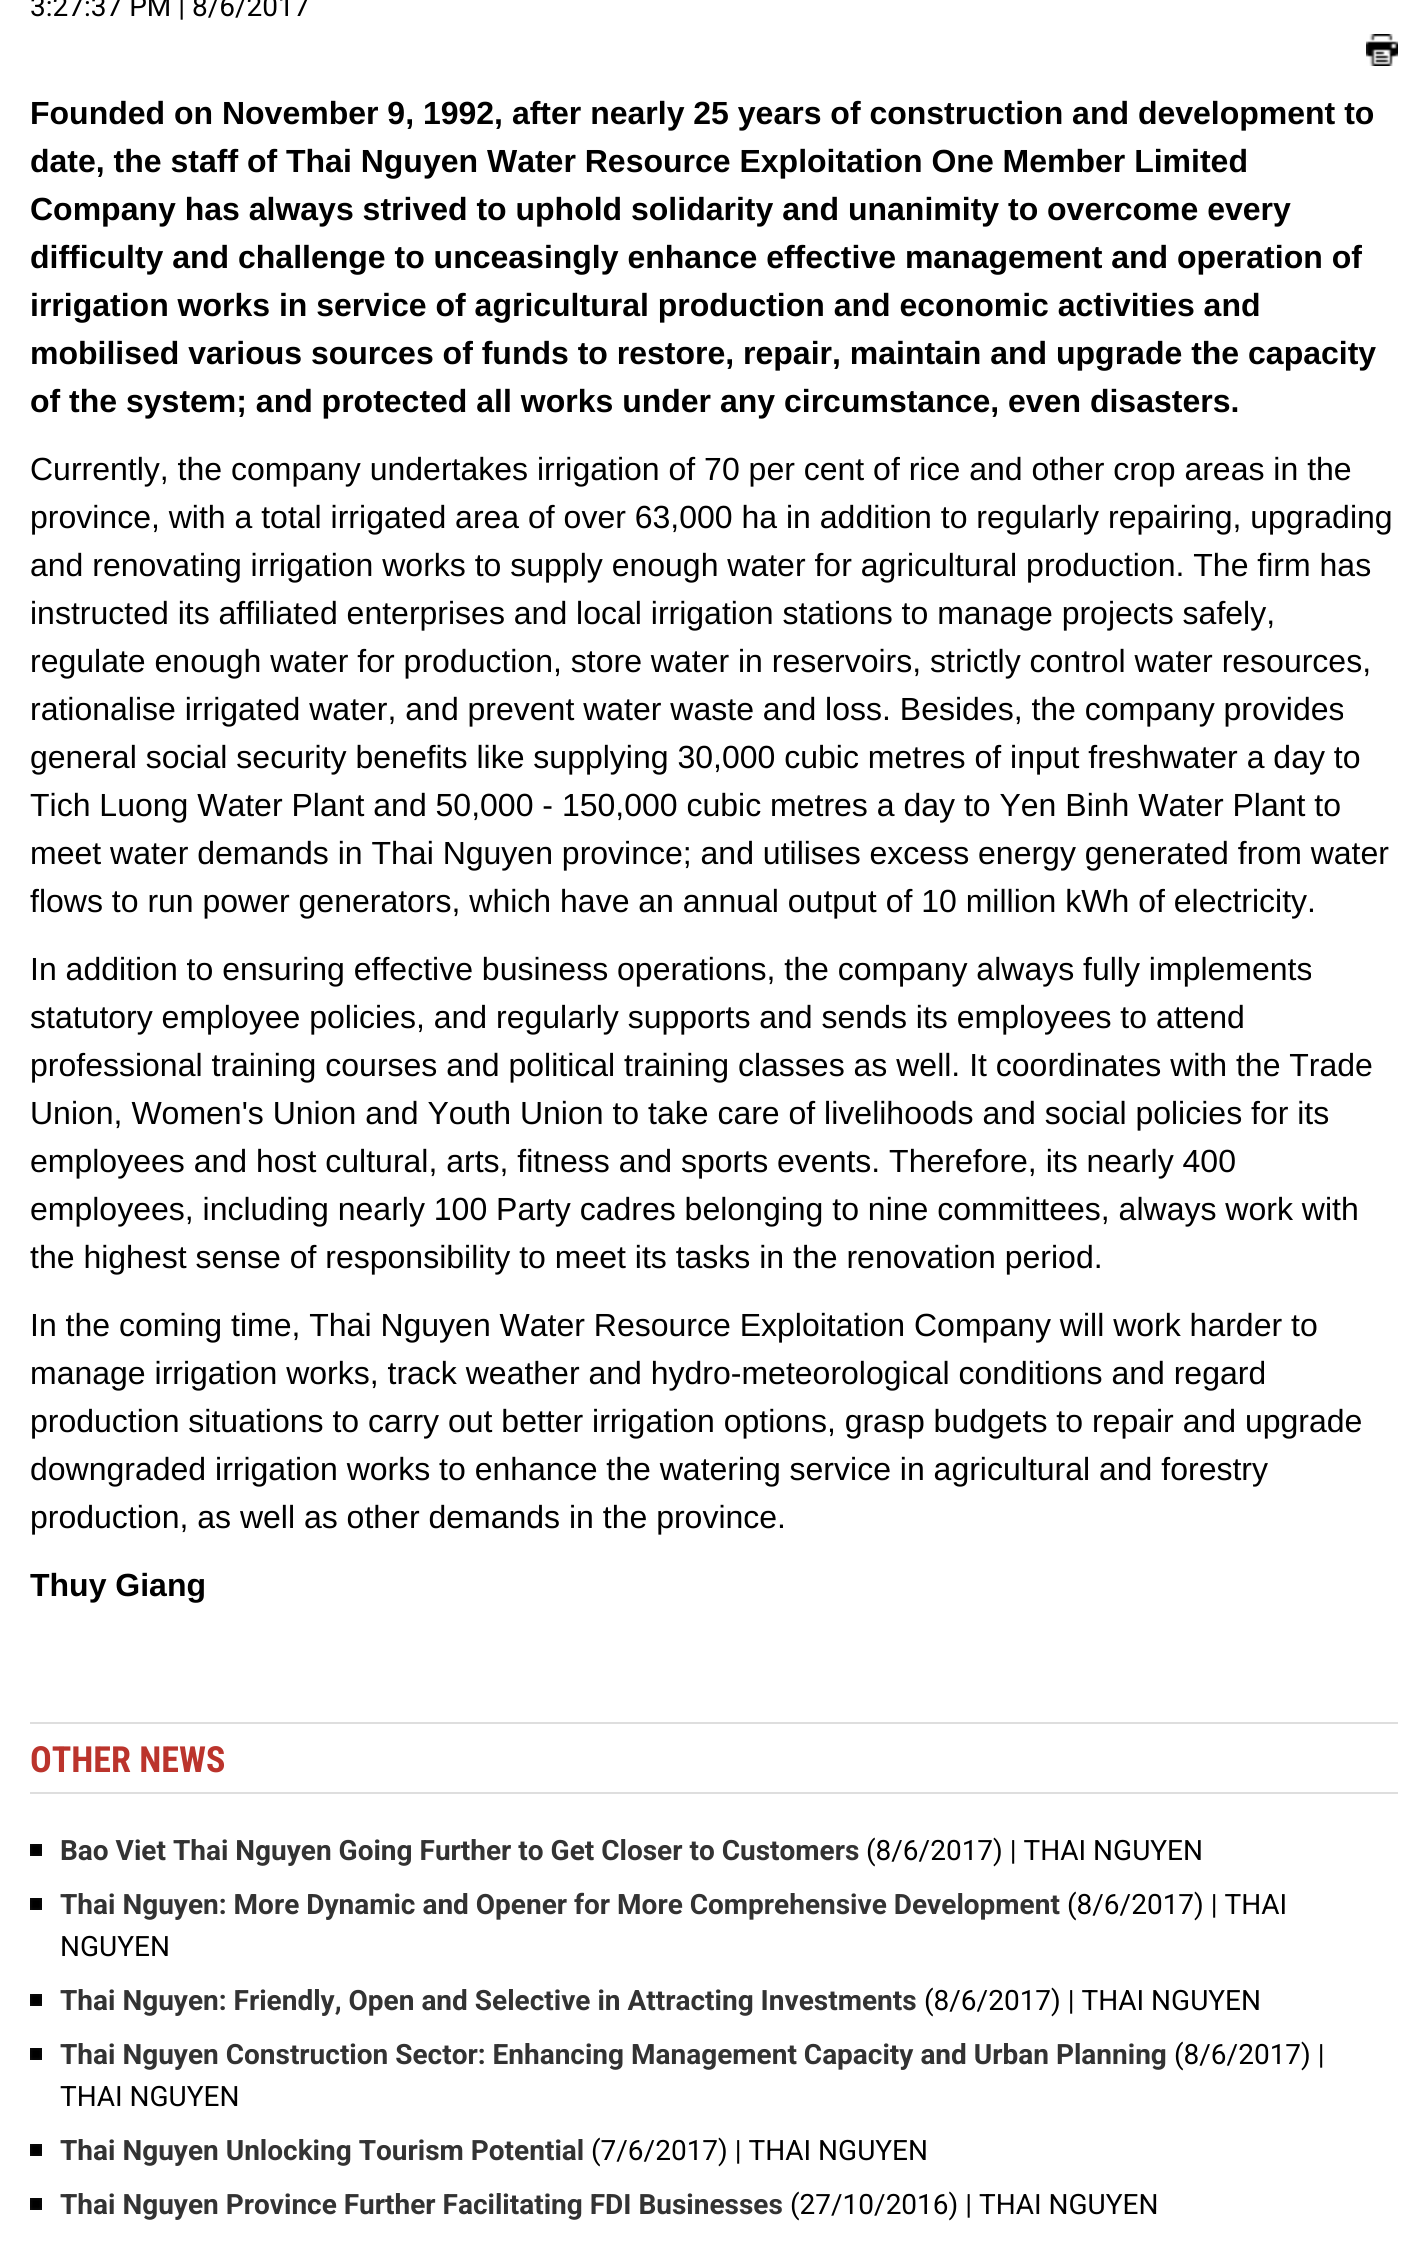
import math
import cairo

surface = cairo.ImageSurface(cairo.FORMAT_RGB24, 1427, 2252)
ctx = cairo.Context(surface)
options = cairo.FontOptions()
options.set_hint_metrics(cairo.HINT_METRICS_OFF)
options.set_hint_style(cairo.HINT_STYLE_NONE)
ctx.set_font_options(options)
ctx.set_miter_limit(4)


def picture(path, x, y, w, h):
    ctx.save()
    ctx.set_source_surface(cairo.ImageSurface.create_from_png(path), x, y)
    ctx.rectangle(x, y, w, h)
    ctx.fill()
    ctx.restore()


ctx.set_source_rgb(1, 1, 1)
ctx.paint()
ctx.select_font_face("Roboto")
ctx.set_font_size(28)
ctx.set_source_rgb(0, 0, 0)
ctx.move_to(30, 16)
ctx.show_text("3:27:37 PM | 8/6/2017")
picture("img1.png", 1366, 34, 32, 32)
ctx.select_font_face("Liberation Sans", cairo.FONT_SLANT_NORMAL, cairo.FONT_WEIGHT_BOLD)
ctx.set_font_size(32)
ctx.move_to(30, 124)
ctx.show_text("Founded on November 9, 1992, after nearly 25 years of construction and development to")
ctx.move_to(30, 172)
ctx.show_text("date, the staff of Thai Nguyen Water Resource Exploitation One Member Limited")
ctx.move_to(30, 220)
ctx.show_text("Company has always strived to uphold solidarity and unanimity to overcome every")
ctx.move_to(30, 268)
ctx.show_text("difficulty and challenge to unceasingly enhance effective management and operation of")
ctx.move_to(30, 316)
ctx.show_text("irrigation works in service of agricultural production and economic activities and")
ctx.move_to(30, 364)
ctx.show_text("mobilised various sources of funds to restore, repair, maintain and upgrade the capacity")
ctx.move_to(30, 412)
ctx.show_text("of the system; and protected all works under any circumstance, even disasters.")
ctx.select_font_face("Liberation Sans")
ctx.move_to(30, 480)
ctx.show_text("Currently, the company undertakes irrigation of 70 per cent of rice and other crop areas in the")
ctx.move_to(30, 528)
ctx.show_text("province, with a total irrigated area of over 63,000 ha in addition to regularly repairing, upgrading")
ctx.move_to(30, 576)
ctx.show_text("and renovating irrigation works to supply enough water for agricultural production. The firm has")
ctx.move_to(30, 624)
ctx.show_text("instructed its affiliated enterprises and local irrigation stations to manage projects safely,")
ctx.move_to(30, 672)
ctx.show_text("regulate enough water for production, store water in reservoirs, strictly control water resources,")
ctx.move_to(30, 720)
ctx.show_text("rationalise irrigated water, and prevent water waste and loss. Besides, the company provides")
ctx.move_to(30, 768)
ctx.show_text("general social security benefits like supplying 30,000 cubic metres of input freshwater a day to")
ctx.move_to(30, 816)
ctx.show_text("Tich Luong Water Plant and 50,000 - 150,000 cubic metres a day to Yen Binh Water Plant to")
ctx.move_to(30, 864)
ctx.show_text("meet water demands in Thai Nguyen province; and utilises excess energy generated from water")
ctx.move_to(30, 912)
ctx.show_text("flows to run power generators, which have an annual output of 10 million kWh of electricity.")
ctx.move_to(30, 980)
ctx.show_text("In addition to ensuring effective business operations, the company always fully implements")
ctx.move_to(30, 1028)
ctx.show_text("statutory employee policies, and regularly supports and sends its employees to attend")
ctx.move_to(30, 1076)
ctx.show_text("professional training courses and political training classes as well. It coordinates with the Trade")
ctx.move_to(30, 1124)
ctx.show_text("Union, Women's Union and Youth Union to take care of livelihoods and social policies for its")
ctx.move_to(30, 1172)
ctx.show_text("employees and host cultural, arts, fitness and sports events. Therefore, its nearly 400")
ctx.move_to(30, 1220)
ctx.show_text("employees, including nearly 100 Party cadres belonging to nine committees, always work with")
ctx.move_to(30, 1268)
ctx.show_text("the highest sense of responsibility to meet its tasks in the renovation period.")
ctx.move_to(30, 1336)
ctx.show_text("In the coming time, Thai Nguyen Water Resource Exploitation Company will work harder to")
ctx.move_to(30, 1384)
ctx.show_text("manage irrigation works, track weather and hydro-meteorological conditions and regard")
ctx.move_to(30, 1432)
ctx.show_text("production situations to carry out better irrigation options, grasp budgets to repair and upgrade")
ctx.move_to(30, 1480)
ctx.show_text("downgraded irrigation works to enhance the watering service in agricultural and forestry")
ctx.move_to(30, 1528)
ctx.show_text("production, as well as other demands in the province.")
ctx.select_font_face("Liberation Sans", cairo.FONT_SLANT_NORMAL, cairo.FONT_WEIGHT_BOLD)
ctx.move_to(30, 1596)
ctx.show_text("Thuy Giang")
ctx.set_source_rgb(0.871, 0.871, 0.871)
ctx.rectangle(30, 1722, 1368, 2)
ctx.fill()
ctx.rectangle(30, 1792, 1368, 2)
ctx.fill()
ctx.select_font_face("Roboto Condensed", cairo.FONT_SLANT_NORMAL, cairo.FONT_WEIGHT_BOLD)
ctx.set_font_size(36)
ctx.set_source_rgb(0.733, 0.204, 0.173)
ctx.move_to(30, 1772)
ctx.show_text("OTHER NEWS")
picture("img2.png", 30, 1844, 12, 12)
ctx.select_font_face("Roboto", cairo.FONT_SLANT_NORMAL, cairo.FONT_WEIGHT_BOLD)
ctx.set_font_size(28)
ctx.set_source_rgb(0.2, 0.2, 0.2)
ctx.move_to(60, 1860)
ctx.show_text("Bao Viet Thai Nguyen Going Further to Get Closer to Customers")
ctx.select_font_face("Roboto")
ctx.set_source_rgb(0, 0, 0)
ctx.move_to(866, 1860)
ctx.show_text("(8/6/2017) | THAI NGUYEN")
picture("img2.png", 30, 1898, 12, 12)
ctx.select_font_face("Roboto", cairo.FONT_SLANT_NORMAL, cairo.FONT_WEIGHT_BOLD)
ctx.set_source_rgb(0.2, 0.2, 0.2)
ctx.move_to(60, 1914)
ctx.show_text("Thai Nguyen: More Dynamic and Opener for More Comprehensive Development")
ctx.select_font_face("Roboto")
ctx.set_source_rgb(0, 0, 0)
ctx.move_to(1067, 1914)
ctx.show_text("(8/6/2017) | THAI")
ctx.move_to(60, 1956)
ctx.show_text("NGUYEN")
picture("img2.png", 30, 1994, 12, 12)
ctx.select_font_face("Roboto", cairo.FONT_SLANT_NORMAL, cairo.FONT_WEIGHT_BOLD)
ctx.set_source_rgb(0.2, 0.2, 0.2)
ctx.move_to(60, 2010)
ctx.show_text("Thai Nguyen: Friendly, Open and Selective in Attracting Investments")
ctx.select_font_face("Roboto")
ctx.set_source_rgb(0, 0, 0)
ctx.move_to(924, 2010)
ctx.show_text("(8/6/2017) | THAI NGUYEN")
picture("img2.png", 30, 2048, 12, 12)
ctx.select_font_face("Roboto", cairo.FONT_SLANT_NORMAL, cairo.FONT_WEIGHT_BOLD)
ctx.set_source_rgb(0.2, 0.2, 0.2)
ctx.move_to(60, 2064)
ctx.show_text("Thai Nguyen Construction Sector: Enhancing Management Capacity and Urban Planning")
ctx.select_font_face("Roboto")
ctx.set_source_rgb(0, 0, 0)
ctx.move_to(1174, 2064)
ctx.show_text("(8/6/2017) |")
ctx.move_to(60, 2106)
ctx.show_text("THAI NGUYEN")
picture("img2.png", 30, 2144, 12, 12)
ctx.select_font_face("Roboto", cairo.FONT_SLANT_NORMAL, cairo.FONT_WEIGHT_BOLD)
ctx.set_source_rgb(0.2, 0.2, 0.2)
ctx.move_to(60, 2160)
ctx.show_text("Thai Nguyen Unlocking Tourism Potential")
ctx.select_font_face("Roboto")
ctx.set_source_rgb(0, 0, 0)
ctx.move_to(591, 2160)
ctx.show_text("(7/6/2017) | THAI NGUYEN")
picture("img2.png", 30, 2198, 12, 12)
ctx.select_font_face("Roboto", cairo.FONT_SLANT_NORMAL, cairo.FONT_WEIGHT_BOLD)
ctx.set_source_rgb(0.2, 0.2, 0.2)
ctx.move_to(60, 2214)
ctx.show_text("Thai Nguyen Province Further Facilitating FDI Businesses")
ctx.select_font_face("Roboto")
ctx.set_source_rgb(0, 0, 0)
ctx.move_to(790, 2214)
ctx.show_text("(27/10/2016) | THAI NGUYEN")
surface.write_to_png("page.png")
